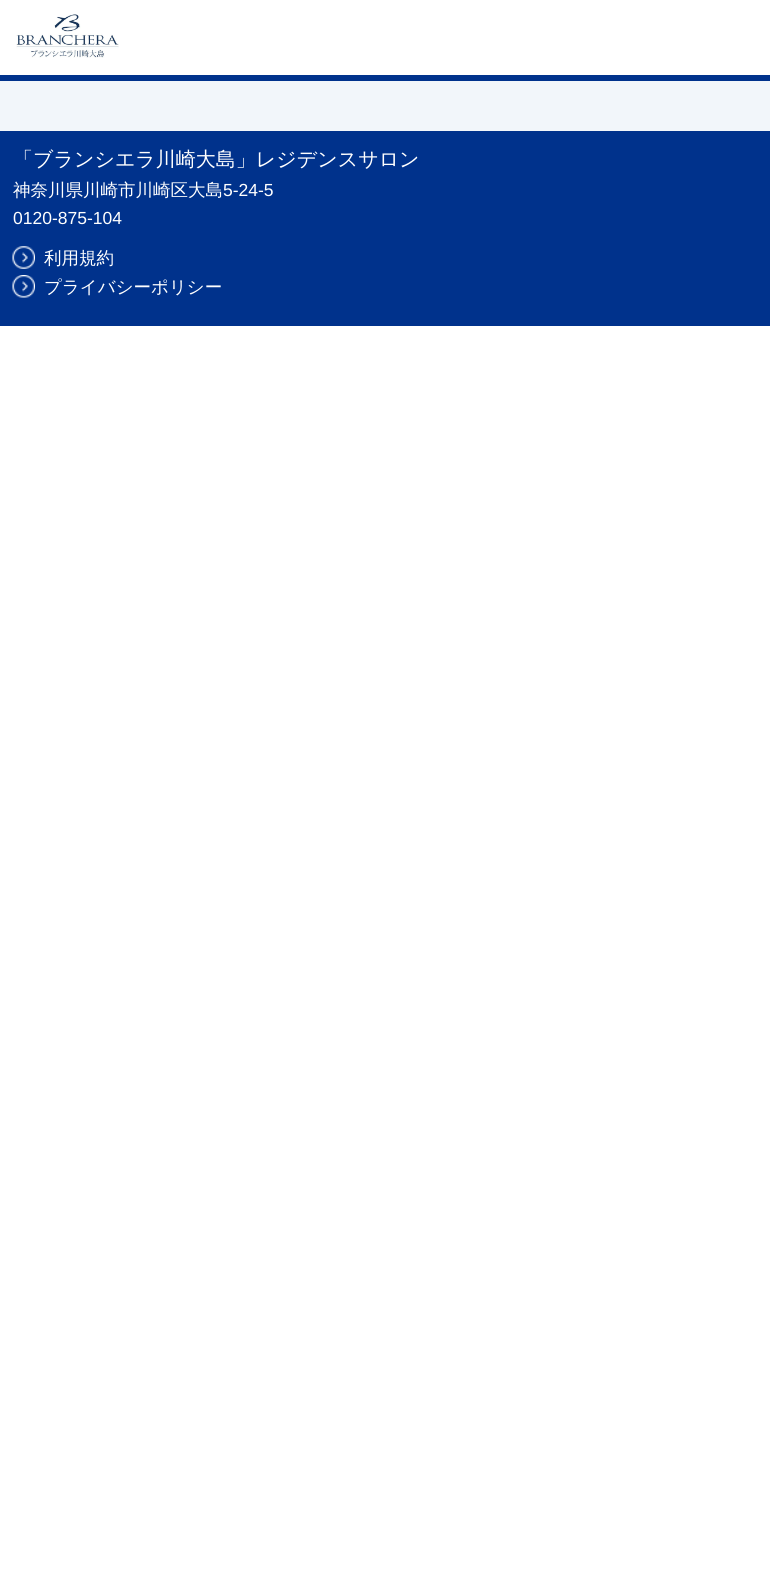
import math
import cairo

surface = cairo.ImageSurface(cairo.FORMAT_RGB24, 770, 1595)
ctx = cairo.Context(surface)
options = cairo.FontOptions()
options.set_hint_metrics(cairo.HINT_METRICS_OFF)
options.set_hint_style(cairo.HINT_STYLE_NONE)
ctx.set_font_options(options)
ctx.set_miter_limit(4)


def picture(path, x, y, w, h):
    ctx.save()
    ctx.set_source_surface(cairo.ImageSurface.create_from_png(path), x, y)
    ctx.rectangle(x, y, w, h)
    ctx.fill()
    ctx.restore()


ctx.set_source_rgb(1, 1, 1)
ctx.paint()
ctx.set_source_rgb(0, 0.196, 0.549)
ctx.rectangle(0, 75, 770, 6)
ctx.fill()
picture("img1.png", 16, 14, 103, 44)
ctx.set_source_rgb(0.949, 0.961, 0.98)
ctx.rectangle(0, 81, 770, 50)
ctx.fill()
ctx.set_source_rgb(0, 0.196, 0.549)
ctx.rectangle(0, 131, 770, 195)
ctx.fill()
ctx.select_font_face("WenQuanYi Zen Hei Medium")
ctx.set_font_size(20)
ctx.set_source_rgb(1, 1, 1)
ctx.move_to(13, 166)
ctx.show_text("「ブランシエラ川崎大島」レジデンスサロン")
ctx.set_font_size(17.5)
ctx.move_to(13, 196)
ctx.show_text("神奈川県川崎市川崎区大島")
ctx.select_font_face("Liberation Sans")
ctx.move_to(223, 196)
ctx.show_text("5-24-5")
ctx.move_to(13, 224)
ctx.show_text("0120-875-104")
picture("img2.png", 12, 246, 23, 23)
ctx.select_font_face("WenQuanYi Zen Hei Medium")
ctx.move_to(44, 264)
ctx.show_text("利用規約")
picture("img3.png", 12, 275, 23, 23)
ctx.move_to(44, 293)
ctx.show_text("プライバシーポリシー")
surface.write_to_png("page.png")
